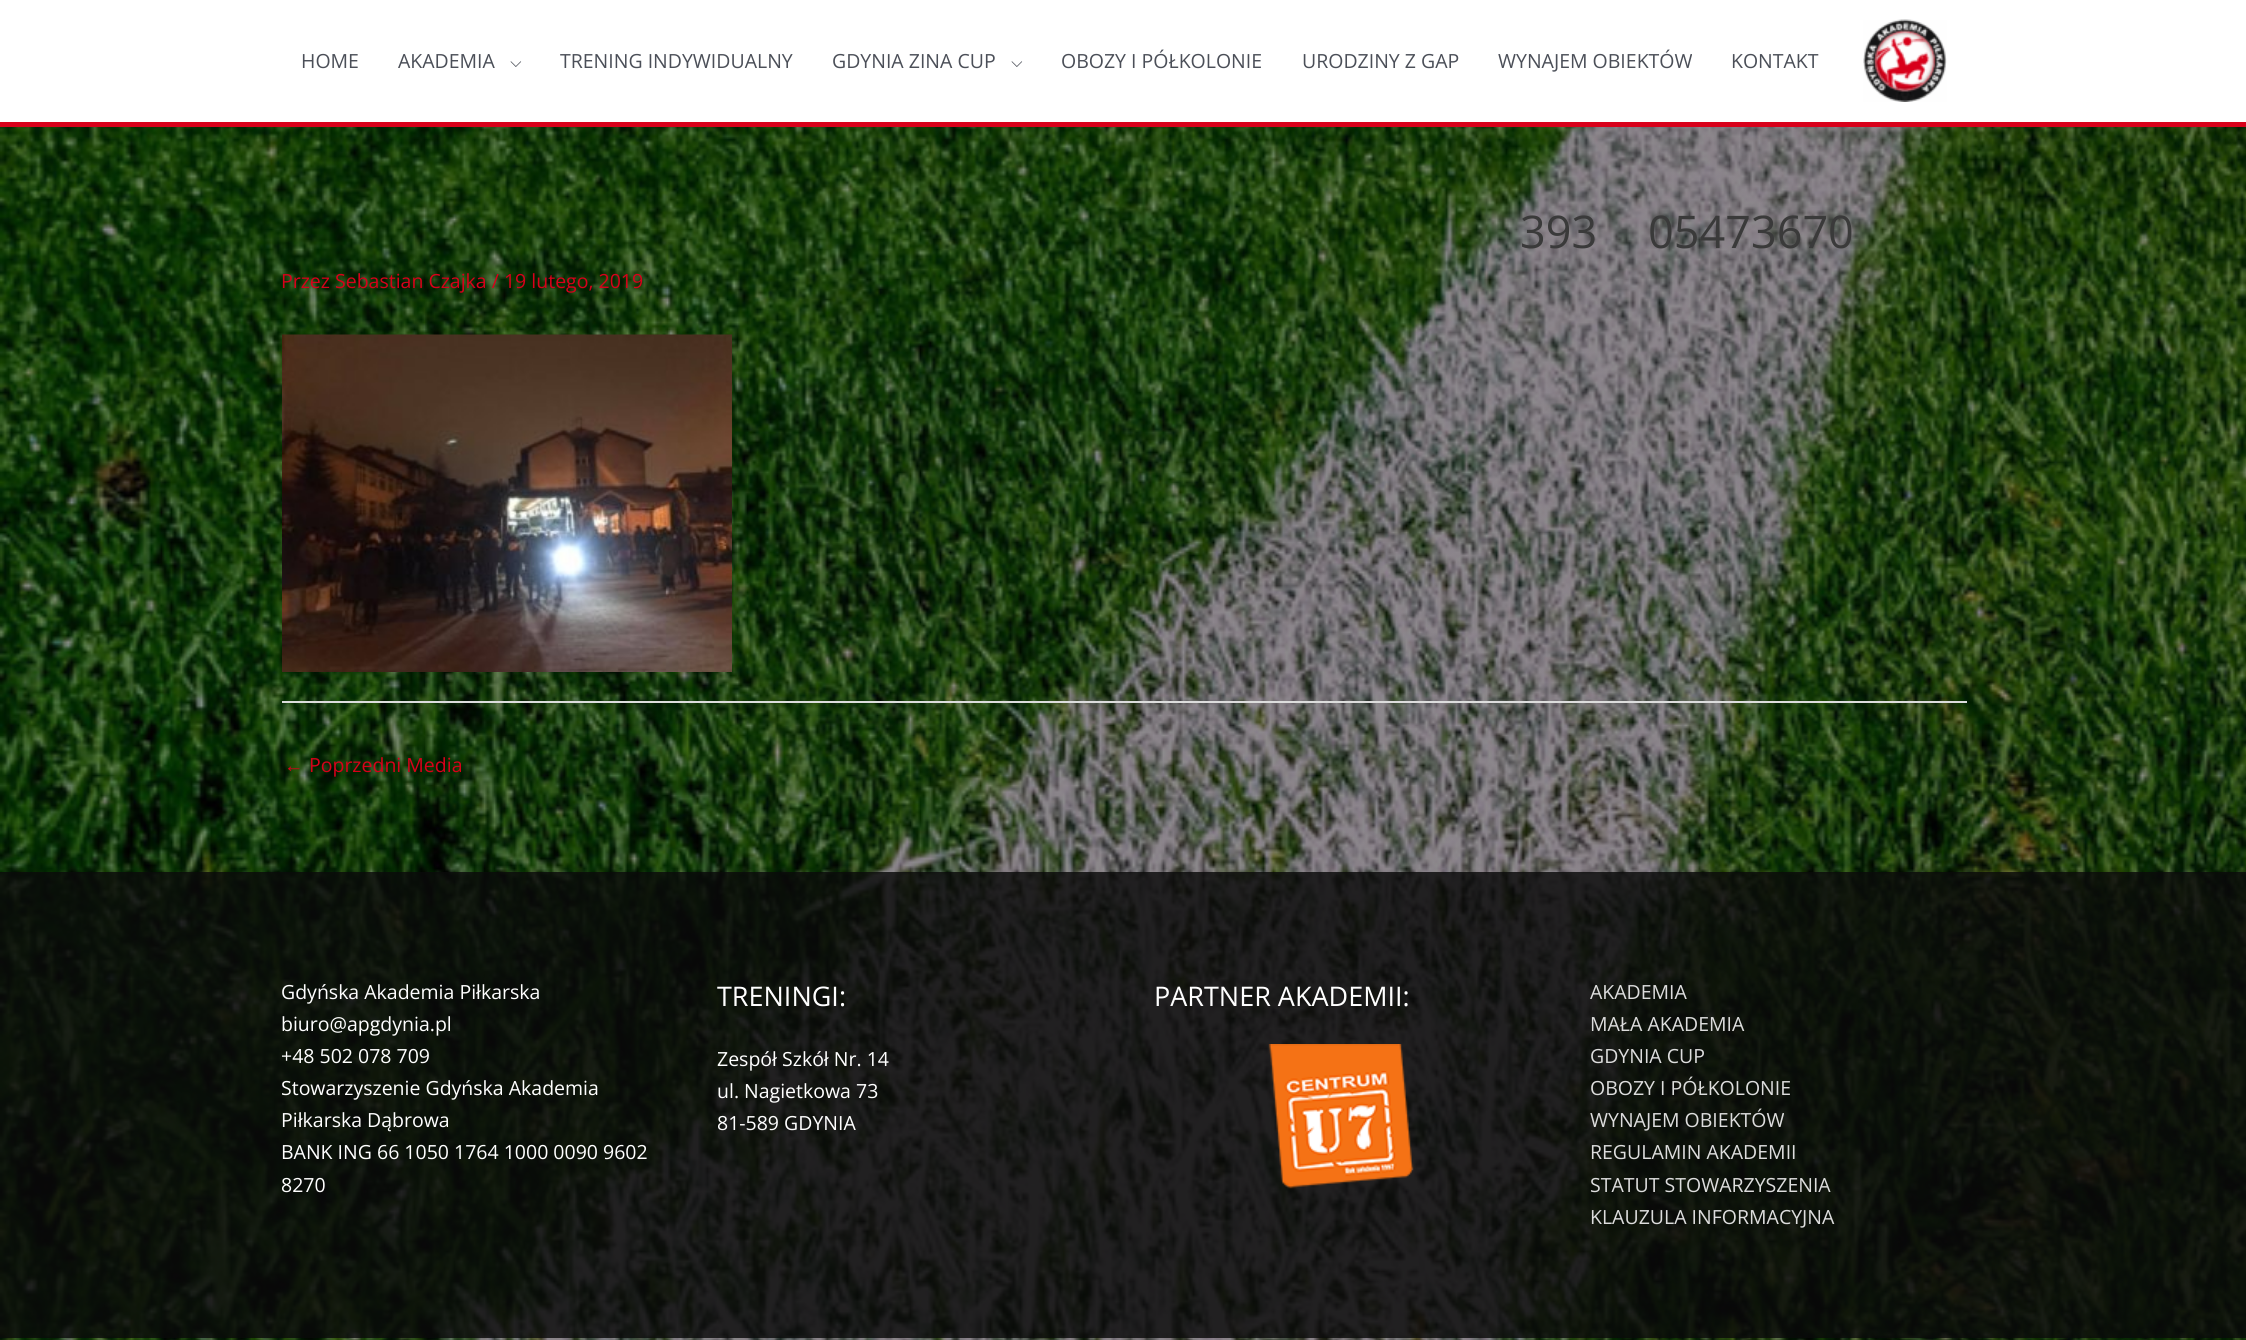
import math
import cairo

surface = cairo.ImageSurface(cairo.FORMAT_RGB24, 2246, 1340)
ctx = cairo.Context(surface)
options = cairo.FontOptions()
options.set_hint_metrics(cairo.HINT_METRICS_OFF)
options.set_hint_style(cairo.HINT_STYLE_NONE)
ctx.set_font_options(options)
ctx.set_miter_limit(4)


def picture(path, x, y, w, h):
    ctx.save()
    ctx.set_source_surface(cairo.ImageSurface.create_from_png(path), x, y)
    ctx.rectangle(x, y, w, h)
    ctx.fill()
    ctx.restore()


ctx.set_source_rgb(1, 1, 1)
ctx.paint()
picture("img1.png", 0, 127, 2246, 1213)
ctx.set_source_rgb(0.847, 0, 0.102)
ctx.rectangle(0, 122, 2246, 5)
ctx.fill()
ctx.select_font_face("Open Sans")
ctx.set_font_size(19.5)
ctx.set_source_rgb(0.294, 0.31, 0.345)
ctx.move_to(301, 68)
ctx.show_text("HOME")
ctx.move_to(398, 68)
ctx.show_text("AKADEMIA")
picture("img2.png", 510, 61, 12, 6)
ctx.move_to(560, 68)
ctx.show_text("TRENING INDYWIDUALNY")
ctx.move_to(832, 68)
ctx.show_text("GDYNIA ZINA CUP")
picture("img2.png", 1011, 61, 12, 6)
ctx.move_to(1061, 68)
ctx.show_text("OBOZY I PÓŁKOLONIE")
ctx.move_to(1302, 68)
ctx.show_text("URODZINY Z GAP")
ctx.move_to(1498, 68)
ctx.show_text("WYNAJEM OBIEKTÓW")
ctx.move_to(1731, 68)
ctx.show_text("KONTAKT")
picture("img3.png", 1863, 19, 84, 83)
ctx.set_font_size(45)
ctx.set_source_rgb(0.227, 0.227, 0.227)
ctx.move_to(1520, 248)
ctx.show_text("393")
ctx.move_to(1648, 248)
ctx.show_text("05473670")
ctx.set_font_size(19.5)
ctx.set_source_rgb(0.847, 0, 0.102)
ctx.move_to(281, 288)
ctx.show_text("Przez Sebastian Czajka / 19 lutego, 2019")
picture("img4.png", 282, 334, 450, 338)
ctx.set_source_rgb(0.867, 0.867, 0.867)
ctx.rectangle(282, 701, 1685, 2)
ctx.fill()
ctx.select_font_face("Liberation Sans")
ctx.set_source_rgb(0.847, 0, 0.102)
ctx.move_to(284, 772)
ctx.show_text("←")
ctx.select_font_face("Open Sans")
ctx.move_to(309, 772)
ctx.show_text("Poprzedni Media")
ctx.set_source_rgba(0.039, 0.039, 0.039, 0.82)
ctx.rectangle(0, 872, 2246, 466)
ctx.fill()
ctx.set_source_rgb(1, 1, 1)
ctx.move_to(281, 999)
ctx.show_text("Gdyńska Akademia Piłkarska")
ctx.move_to(281, 1031)
ctx.show_text("biuro@apgdynia.pl")
ctx.move_to(281, 1063)
ctx.show_text("+48 502 078 709")
ctx.move_to(281, 1095)
ctx.show_text("Stowarzyszenie Gdyńska Akademia")
ctx.move_to(281, 1127)
ctx.show_text("Piłkarska Dąbrowa")
ctx.move_to(281, 1159)
ctx.show_text("BANK ING 66 1050 1764 1000 0090 9602")
ctx.move_to(281, 1192)
ctx.show_text("8270")
ctx.set_font_size(27)
ctx.move_to(717, 1006)
ctx.show_text("TRENINGI:")
ctx.set_font_size(19.5)
ctx.move_to(717, 1066)
ctx.show_text("Zespół Szkół Nr. 14")
ctx.move_to(717, 1098)
ctx.show_text("ul. Nagietkowa 73")
ctx.move_to(717, 1130)
ctx.show_text("81-589 GDYNIA")
ctx.set_font_size(27)
ctx.move_to(1154, 1006)
ctx.show_text("PARTNER AKADEMII:")
picture("img5.png", 1268, 1044, 146, 145)
ctx.set_font_size(19.5)
ctx.set_source_rgb(0.867, 0.867, 0.867)
ctx.move_to(1590, 999)
ctx.show_text("AKADEMIA")
ctx.move_to(1590, 1031)
ctx.show_text("MAŁA AKADEMIA")
ctx.move_to(1590, 1063)
ctx.show_text("GDYNIA CUP")
ctx.move_to(1590, 1095)
ctx.show_text("OBOZY I PÓŁKOLONIE")
ctx.move_to(1590, 1127)
ctx.show_text("WYNAJEM OBIEKTÓW")
ctx.move_to(1590, 1159)
ctx.show_text("REGULAMIN AKADEMII")
ctx.move_to(1590, 1192)
ctx.show_text("STATUT STOWARZYSZENIA")
ctx.move_to(1590, 1224)
ctx.show_text("KLAUZULA INFORMACYJNA")
surface.write_to_png("page.png")
